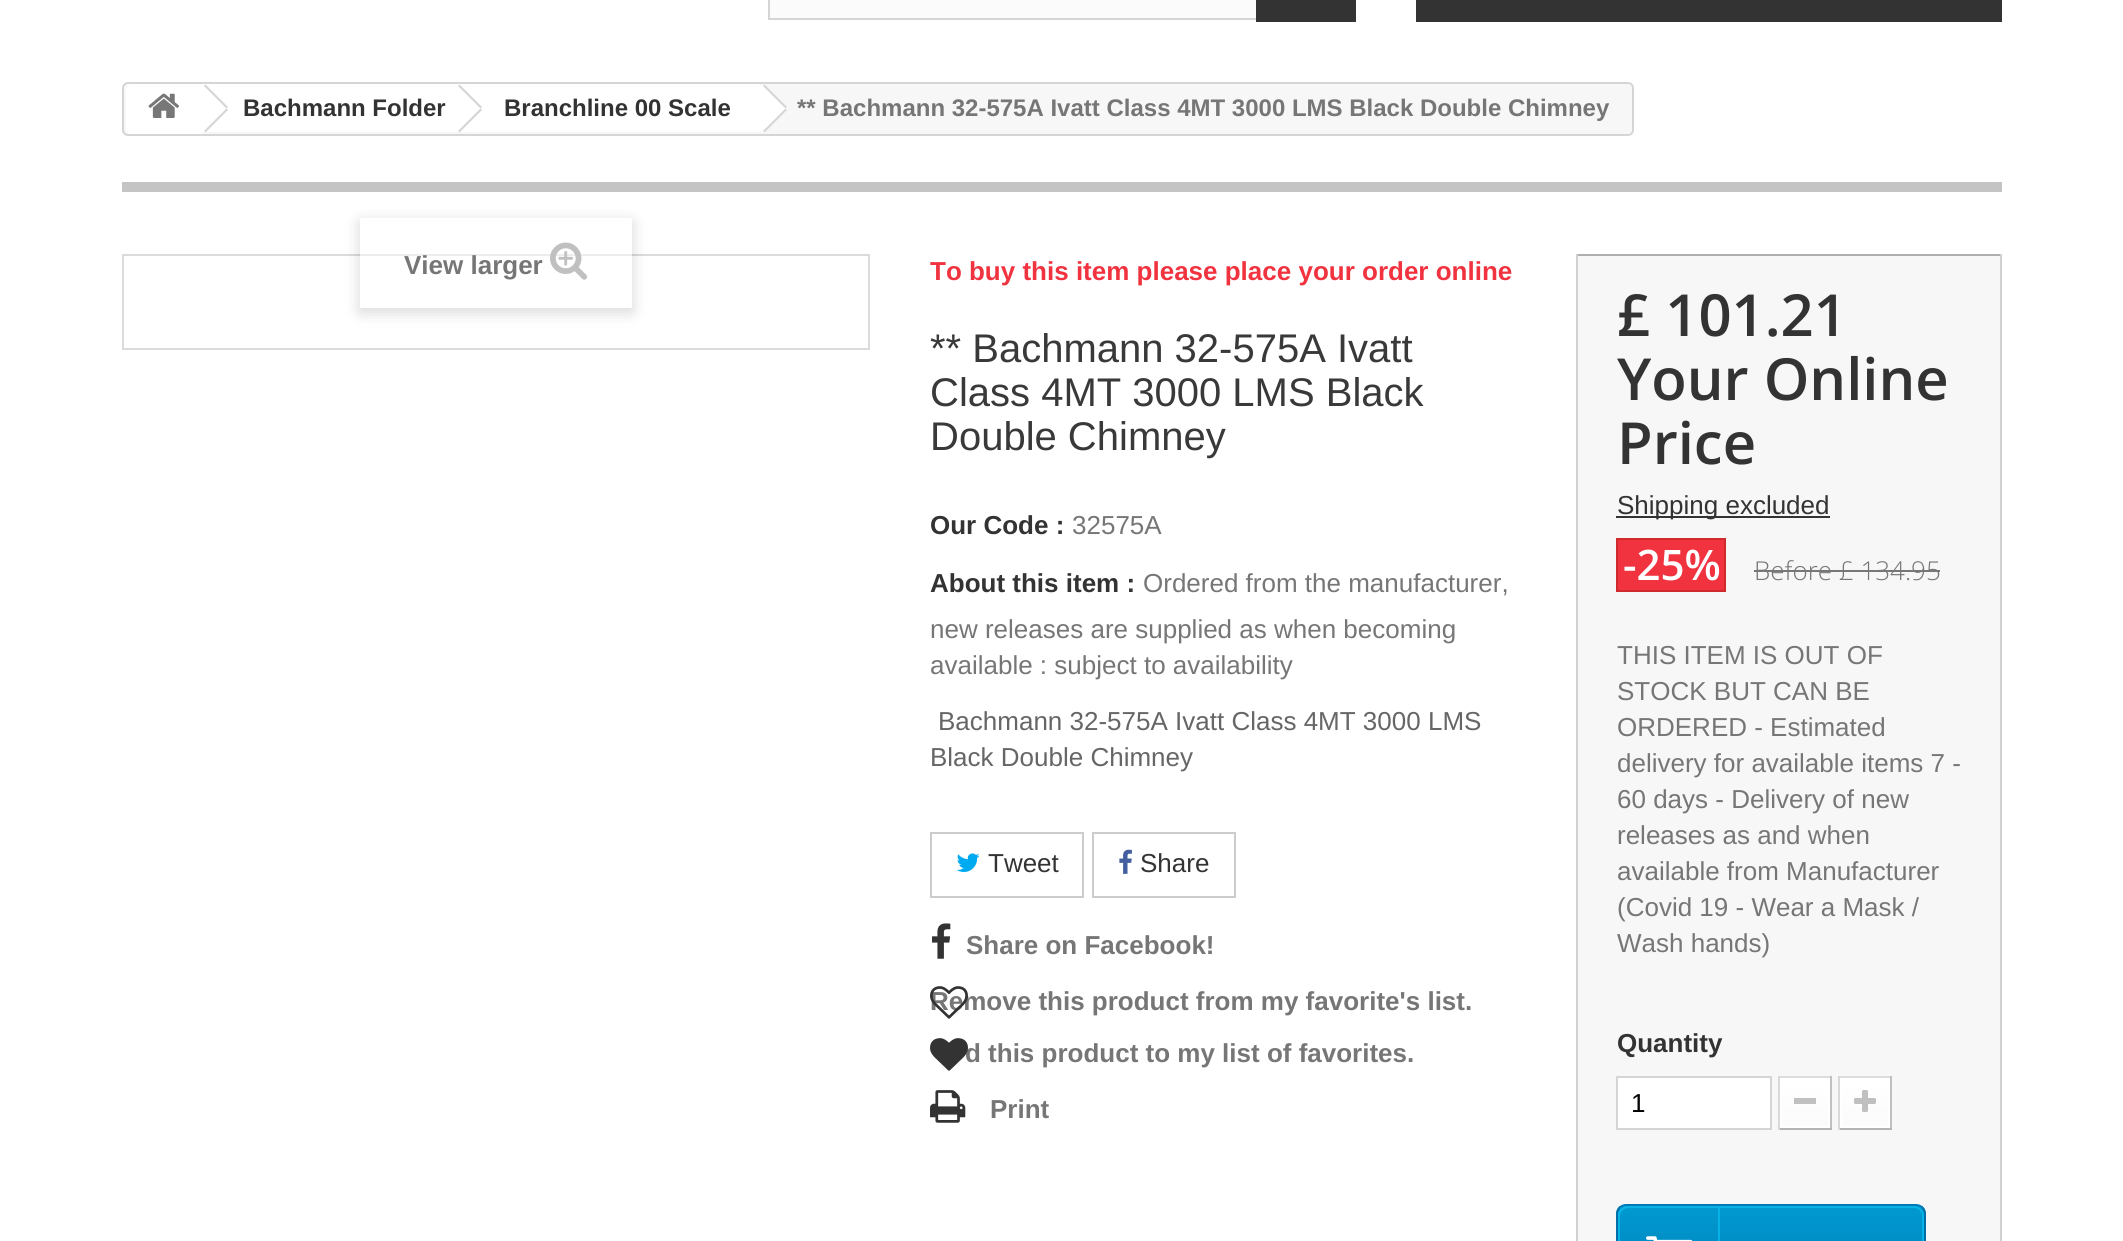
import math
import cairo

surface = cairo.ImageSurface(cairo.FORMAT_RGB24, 2123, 1241)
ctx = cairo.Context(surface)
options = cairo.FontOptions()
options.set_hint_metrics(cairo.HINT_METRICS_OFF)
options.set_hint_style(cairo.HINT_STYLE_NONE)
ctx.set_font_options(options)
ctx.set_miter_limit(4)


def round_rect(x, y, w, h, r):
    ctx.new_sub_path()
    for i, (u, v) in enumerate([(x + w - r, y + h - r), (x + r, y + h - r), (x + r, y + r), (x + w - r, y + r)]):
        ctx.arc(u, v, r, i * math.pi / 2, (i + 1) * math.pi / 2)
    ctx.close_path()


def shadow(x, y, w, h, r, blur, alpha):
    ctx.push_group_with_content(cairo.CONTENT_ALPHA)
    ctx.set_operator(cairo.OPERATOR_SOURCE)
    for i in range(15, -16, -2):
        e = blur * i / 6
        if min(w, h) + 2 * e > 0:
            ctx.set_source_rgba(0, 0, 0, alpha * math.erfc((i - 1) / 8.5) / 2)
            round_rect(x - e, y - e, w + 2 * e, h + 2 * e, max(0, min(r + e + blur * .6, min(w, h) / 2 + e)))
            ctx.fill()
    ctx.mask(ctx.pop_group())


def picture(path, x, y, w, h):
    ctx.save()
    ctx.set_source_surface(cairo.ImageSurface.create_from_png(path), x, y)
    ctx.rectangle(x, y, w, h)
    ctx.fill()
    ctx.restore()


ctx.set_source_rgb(1, 1, 1)
ctx.paint()
ctx.set_source_rgb(0.984, 0.984, 0.984)
ctx.rectangle(770, 0, 486, 18)
ctx.fill()
ctx.rectangle(769, -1, 586, 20)
ctx.set_source_rgb(0.839, 0.831, 0.831)
ctx.stroke()
ctx.set_source_rgb(0.2, 0.2, 0.2)
ctx.rectangle(1256, 0, 100, 22)
ctx.fill()
ctx.rectangle(1416, 0, 586, 22)
ctx.fill()
ctx.set_source_rgb(0.965, 0.965, 0.965)
round_rect(123, 83, 1510, 52, 5)
ctx.fill_preserve()
ctx.set_source_rgb(0.839, 0.831, 0.831)
ctx.stroke()
ctx.set_source_rgb(1, 1, 1)
ctx.new_path()
ctx.move_to(132, 84)
ctx.line_to(202, 84)
ctx.line_to(202, 134)
ctx.line_to(132, 134)
ctx.curve_to(128.5, 134, 126, 131.5, 126, 128)
ctx.line_to(126, 90)
ctx.curve_to(126, 86.5, 128.5, 84, 132, 84)
ctx.close_path()
ctx.fill()
picture("img1.png", 148, 93, 31, 25)
ctx.rectangle(202, 84, 258, 48)
ctx.fill()
ctx.new_path()
ctx.move_to(207, 86)
ctx.line_to(227, 106)
ctx.curve_to(228, 107, 228, 110, 227, 111)
ctx.line_to(207, 131)
ctx.curve_to(205, 133, 203, 133, 201, 131)
ctx.line_to(181, 111)
ctx.curve_to(180, 110, 180, 107, 181, 106)
ctx.line_to(201, 86)
ctx.curve_to(203, 84, 205, 84, 207, 86)
ctx.close_path()
ctx.fill()
ctx.set_source_rgb(0.839, 0.831, 0.831)
ctx.new_path()
ctx.move_to(205.5, 84.5)
ctx.line_to(228, 107)
ctx.line_to(226.5, 108.5)
ctx.line_to(204, 86)
ctx.close_path()
ctx.fill()
ctx.new_path()
ctx.move_to(226.5, 108.5)
ctx.line_to(228, 110)
ctx.line_to(205.5, 132.5)
ctx.line_to(204, 131)
ctx.close_path()
ctx.fill()
ctx.select_font_face("Liberation Sans", cairo.FONT_SLANT_NORMAL, cairo.FONT_WEIGHT_BOLD)
ctx.set_font_size(24)
ctx.set_source_rgb(0.2, 0.2, 0.2)
ctx.move_to(243, 116)
ctx.show_text("Bachmann Folder")
ctx.set_source_rgb(1, 1, 1)
ctx.new_path()
ctx.move_to(481, 86)
ctx.line_to(501, 106)
ctx.curve_to(502, 107, 502, 110, 501, 111)
ctx.line_to(481, 131)
ctx.curve_to(479, 133, 477, 133, 475, 131)
ctx.line_to(455, 111)
ctx.curve_to(454, 110, 454, 107, 455, 106)
ctx.line_to(475, 86)
ctx.curve_to(477, 84, 479, 84, 481, 86)
ctx.close_path()
ctx.fill()
ctx.rectangle(460, 84, 300, 48)
ctx.fill()
ctx.set_source_rgb(0.839, 0.831, 0.831)
ctx.new_path()
ctx.move_to(459.5, 84.5)
ctx.line_to(482, 107)
ctx.line_to(480.5, 108.5)
ctx.line_to(458, 86)
ctx.close_path()
ctx.fill()
ctx.new_path()
ctx.move_to(480.5, 108.5)
ctx.line_to(482, 110)
ctx.line_to(459.5, 132.5)
ctx.line_to(458, 131)
ctx.close_path()
ctx.fill()
ctx.set_source_rgb(0.2, 0.2, 0.2)
ctx.move_to(504, 116)
ctx.show_text("Branchline 00 Scale")
ctx.set_source_rgb(1, 1, 1)
ctx.new_path()
ctx.move_to(766, 86)
ctx.line_to(786, 106)
ctx.curve_to(787, 107, 787, 110, 786, 111)
ctx.line_to(766, 131)
ctx.curve_to(764, 133, 762, 133, 760, 131)
ctx.line_to(740, 111)
ctx.curve_to(739, 110, 739, 107, 740, 106)
ctx.line_to(760, 86)
ctx.curve_to(762, 84, 764, 84, 766, 86)
ctx.close_path()
ctx.fill()
ctx.set_source_rgb(0.839, 0.831, 0.831)
ctx.new_path()
ctx.move_to(764.5, 84.5)
ctx.line_to(787, 107)
ctx.line_to(785.5, 108.5)
ctx.line_to(763, 86)
ctx.close_path()
ctx.fill()
ctx.new_path()
ctx.move_to(785.5, 108.5)
ctx.line_to(787, 110)
ctx.line_to(764.5, 132.5)
ctx.line_to(763, 131)
ctx.close_path()
ctx.fill()
ctx.set_source_rgb(0.467, 0.463, 0.463)
ctx.move_to(797, 116)
ctx.show_text("** Bachmann 32-575A Ivatt Class 4MT 3000 LMS Black Double Chimney")
ctx.set_source_rgb(0.769, 0.769, 0.769)
ctx.rectangle(122, 182, 1880, 10)
ctx.fill()
ctx.rectangle(123, 255, 746, 94)
ctx.set_source_rgb(0.859, 0.859, 0.859)
ctx.stroke()
ctx.save()
ctx.set_fill_rule(cairo.FILL_RULE_EVEN_ODD)
ctx.new_path()
ctx.move_to(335, 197)
ctx.line_to(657, 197)
ctx.line_to(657, 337)
ctx.line_to(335, 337)
ctx.close_path()
ctx.move_to(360, 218)
ctx.line_to(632, 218)
ctx.line_to(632, 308)
ctx.line_to(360, 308)
ctx.close_path()
ctx.clip()
ctx.set_source_rgb(0, 0, 0)
shadow(360, 222, 272, 90, 0, 8, 0.16)
ctx.restore()
ctx.set_source_rgba(1, 1, 1, 0.5)
ctx.rectangle(360, 254, 272, 2)
ctx.fill()
ctx.set_font_size(26)
ctx.set_source_rgb(0.467, 0.463, 0.463)
ctx.move_to(404, 274)
ctx.show_text("View larger")
picture("img2.png", 550, 242, 38, 38)
ctx.set_source_rgb(0.945, 0.2, 0.251)
ctx.move_to(930, 280)
ctx.show_text("To buy this item please place your order online")
ctx.select_font_face("Liberation Sans")
ctx.set_font_size(40)
ctx.set_source_rgb(0.227, 0.224, 0.224)
ctx.move_to(930, 362)
ctx.show_text("** Bachmann 32-575A Ivatt")
ctx.move_to(930, 406)
ctx.show_text("Class 4MT 3000 LMS Black")
ctx.move_to(930, 450)
ctx.show_text("Double Chimney")
ctx.select_font_face("Liberation Sans", cairo.FONT_SLANT_NORMAL, cairo.FONT_WEIGHT_BOLD)
ctx.set_font_size(26)
ctx.set_source_rgb(0.2, 0.2, 0.2)
ctx.move_to(930, 534)
ctx.show_text("Our Code :")
ctx.select_font_face("Liberation Sans")
ctx.set_source_rgb(0.467, 0.463, 0.463)
ctx.move_to(1072, 534)
ctx.show_text("32575A")
ctx.select_font_face("Liberation Sans", cairo.FONT_SLANT_NORMAL, cairo.FONT_WEIGHT_BOLD)
ctx.set_source_rgb(0.2, 0.2, 0.2)
ctx.move_to(930, 592)
ctx.show_text("About this item :")
ctx.select_font_face("Liberation Sans")
ctx.set_source_rgb(0.467, 0.463, 0.463)
ctx.move_to(1143, 592)
ctx.show_text("Ordered from the manufacturer,")
ctx.move_to(930, 638)
ctx.show_text("new releases are supplied as when becoming")
ctx.move_to(930, 674)
ctx.show_text("available : subject to availability")
ctx.set_source_rgb(0.4, 0.4, 0.4)
ctx.move_to(938, 730)
ctx.show_text("Bachmann 32-575A Ivatt Class 4MT 3000 LMS")
ctx.move_to(930, 766)
ctx.show_text("Black Double Chimney")
ctx.rectangle(931, 833, 152, 64)
ctx.set_source_rgb(0.8, 0.8, 0.8)
ctx.stroke()
picture("img3.png", 956, 853, 24, 19)
ctx.set_source_rgb(0.2, 0.2, 0.2)
ctx.move_to(988, 872)
ctx.show_text("Tweet")
ctx.rectangle(1093, 833, 142, 64)
ctx.set_source_rgb(0.8, 0.8, 0.8)
ctx.stroke()
picture("img4.png", 1119, 849, 13, 25)
ctx.set_source_rgb(0.2, 0.2, 0.2)
ctx.move_to(1140, 872)
ctx.show_text("Share")
picture("img5.png", 932, 923, 19, 36)
ctx.select_font_face("Liberation Sans", cairo.FONT_SLANT_NORMAL, cairo.FONT_WEIGHT_BOLD)
ctx.set_source_rgb(0.467, 0.463, 0.463)
ctx.move_to(966, 954)
ctx.show_text("Share on Facebook!")
ctx.move_to(930, 1010)
ctx.show_text("Remove this product from my favorite's list.")
picture("img6.png", 930, 986, 38, 33)
ctx.move_to(965, 1062)
ctx.show_text("d this product to my list of favorites.")
picture("img7.png", 930, 1038, 38, 33)
picture("img8.png", 930, 1090, 36, 33)
ctx.move_to(990, 1118)
ctx.show_text("Print")
ctx.set_source_rgb(0.965, 0.965, 0.965)
ctx.rectangle(1578, 256, 422, 985)
ctx.fill()
ctx.set_source_rgb(0.69, 0.686, 0.686)
ctx.rectangle(1576, 254, 426, 2)
ctx.fill()
ctx.set_source_rgb(0.824, 0.816, 0.816)
ctx.rectangle(2000, 254, 2, 987)
ctx.fill()
ctx.rectangle(1576, 254, 2, 987)
ctx.fill()
ctx.select_font_face("Open Sans SemiBold")
ctx.set_font_size(58)
ctx.set_source_rgb(0.2, 0.2, 0.2)
ctx.move_to(1617, 336)
ctx.show_text("£ 101.21")
ctx.move_to(1617, 400)
ctx.show_text("Your Online")
ctx.move_to(1617, 464)
ctx.show_text("Price")
ctx.rectangle(1616, 516, 214, 2)
ctx.fill()
ctx.select_font_face("Liberation Sans")
ctx.set_font_size(26)
ctx.move_to(1617, 514)
ctx.show_text("Shipping excluded")
ctx.set_source_rgb(0.945, 0.2, 0.251)
ctx.rectangle(1617, 539, 108, 52)
ctx.fill_preserve()
ctx.set_source_rgb(0.816, 0.165, 0.173)
ctx.stroke()
ctx.select_font_face("Open Sans SemiBold")
ctx.set_font_size(42)
ctx.set_source_rgb(1, 1, 1)
ctx.move_to(1623, 580)
ctx.show_text("-25%")
ctx.select_font_face("Open Sans Light")
ctx.set_font_size(26)
ctx.set_source_rgb(0.467, 0.463, 0.463)
ctx.move_to(1754, 580)
ctx.show_text("Before £ 134.95")
ctx.set_source_rgb(0.467, 0.467, 0.467)
ctx.rectangle(1754, 570, 186, 2)
ctx.fill()
ctx.select_font_face("Liberation Sans")
ctx.set_source_rgb(0.467, 0.463, 0.463)
ctx.move_to(1617, 664)
ctx.show_text("THIS ITEM IS OUT OF")
ctx.move_to(1617, 700)
ctx.show_text("STOCK BUT CAN BE")
ctx.move_to(1617, 736)
ctx.show_text("ORDERED - Estimated")
ctx.move_to(1617, 772)
ctx.show_text("delivery for available items 7 -")
ctx.move_to(1617, 808)
ctx.show_text("60 days - Delivery of new")
ctx.move_to(1617, 844)
ctx.show_text("releases as and when")
ctx.move_to(1617, 880)
ctx.show_text("available from Manufacturer")
ctx.move_to(1617, 916)
ctx.show_text("(Covid 19 - Wear a Mask /")
ctx.move_to(1617, 952)
ctx.show_text("Wash hands)")
ctx.select_font_face("Liberation Sans", cairo.FONT_SLANT_NORMAL, cairo.FONT_WEIGHT_BOLD)
ctx.set_source_rgb(0.2, 0.2, 0.2)
ctx.move_to(1617, 1052)
ctx.show_text("Quantity")
ctx.set_source_rgb(1, 1, 1)
ctx.rectangle(1617, 1077, 154, 52)
ctx.fill_preserve()
ctx.set_source_rgb(0.839, 0.831, 0.831)
ctx.stroke()
ctx.select_font_face("Liberation Sans")
ctx.set_source_rgb(0, 0, 0)
ctx.move_to(1631, 1112)
ctx.show_text("1")
ctx.set_source_rgb(0.871, 0.863, 0.863)
ctx.rectangle(1778, 1076, 54, 2)
ctx.fill()
ctx.set_source_rgb(0.757, 0.749, 0.749)
ctx.rectangle(1830, 1076, 2, 54)
ctx.fill()
ctx.set_source_rgb(0.71, 0.706, 0.706)
ctx.rectangle(1778, 1128, 54, 2)
ctx.fill()
ctx.set_source_rgb(0.855, 0.847, 0.847)
ctx.rectangle(1778, 1076, 2, 54)
ctx.fill()
gradient = cairo.LinearGradient(1805, 1080, 1805, 1126)
gradient.add_color_stop_rgba(0, 1, 1, 1, 1)
gradient.add_color_stop_rgba(1, 0.984, 0.984, 0.984, 1)
ctx.set_source(gradient)
ctx.rectangle(1782, 1080, 46, 46)
ctx.fill()
ctx.rectangle(1781, 1079, 48, 48)
ctx.set_source_rgb(1, 1, 1)
ctx.stroke()
ctx.set_source_rgb(0.753, 0.753, 0.753)
ctx.rectangle(1794, 1098, 22, 6)
ctx.fill()
ctx.set_source_rgb(0.871, 0.863, 0.863)
ctx.rectangle(1838, 1076, 54, 2)
ctx.fill()
ctx.set_source_rgb(0.757, 0.749, 0.749)
ctx.rectangle(1890, 1076, 2, 54)
ctx.fill()
ctx.set_source_rgb(0.71, 0.706, 0.706)
ctx.rectangle(1838, 1128, 54, 2)
ctx.fill()
ctx.set_source_rgb(0.855, 0.847, 0.847)
ctx.rectangle(1838, 1076, 2, 54)
ctx.fill()
gradient = cairo.LinearGradient(1865, 1080, 1865, 1126)
gradient.add_color_stop_rgba(0, 1, 1, 1, 1)
gradient.add_color_stop_rgba(1, 0.984, 0.984, 0.984, 1)
ctx.set_source(gradient)
ctx.rectangle(1842, 1080, 46, 46)
ctx.fill()
ctx.rectangle(1841, 1079, 48, 48)
ctx.set_source_rgb(1, 1, 1)
ctx.stroke()
picture("img9.png", 1854, 1090, 22, 22)
ctx.save()
round_rect(1616, 1204, 310, 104, 10)
ctx.clip()
gradient = cairo.LinearGradient(1771, 1206, 1771, 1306)
gradient.add_color_stop_rgba(0, 0, 0.604, 0.816, 1)
gradient.add_color_stop_rgba(1, 0, 0.478, 0.718, 1)
ctx.set_source(gradient)
ctx.rectangle(1616, 1206, 310, 35)
ctx.fill()
ctx.restore()
ctx.new_path()
ctx.move_to(1619.5, 1207.5)
ctx.curve_to(1621.5, 1206, 1623.5, 1205, 1626, 1205)
ctx.line_to(1916, 1205)
ctx.curve_to(1918.5, 1205, 1920.5, 1206, 1922.5, 1207.5)
ctx.set_source_rgb(0, 0.475, 0.714)
ctx.stroke()
ctx.new_path()
ctx.move_to(1922.5, 1207.5)
ctx.curve_to(1924, 1209.5, 1925, 1211.5, 1925, 1214)
ctx.line_to(1925, 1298)
ctx.curve_to(1925, 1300.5, 1924, 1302.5, 1922.5, 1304.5)
ctx.set_source_rgb(0, 0.435, 0.659)
ctx.stroke()
ctx.new_path()
ctx.move_to(1619.5, 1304.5)
ctx.curve_to(1618, 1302.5, 1617, 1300.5, 1617, 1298)
ctx.line_to(1617, 1214)
ctx.curve_to(1617, 1211.5, 1618, 1209.5, 1619.5, 1207.5)
ctx.stroke()
round_rect(1619, 1207, 304, 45, 9)
ctx.set_source_rgb(0.024, 0.698, 0.902)
ctx.stroke()
ctx.new_path()
ctx.move_to(1628, 1207)
ctx.line_to(1719, 1207)
ctx.line_to(1719, 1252)
ctx.line_to(1628, 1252)
ctx.curve_to(1623, 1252, 1619, 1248, 1619, 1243)
ctx.line_to(1619, 1216)
ctx.curve_to(1619, 1211, 1623, 1207, 1628, 1207)
ctx.close_path()
ctx.stroke()
picture("img10.png", 1646, 1236, 47, 5)
surface.write_to_png("page.png")
